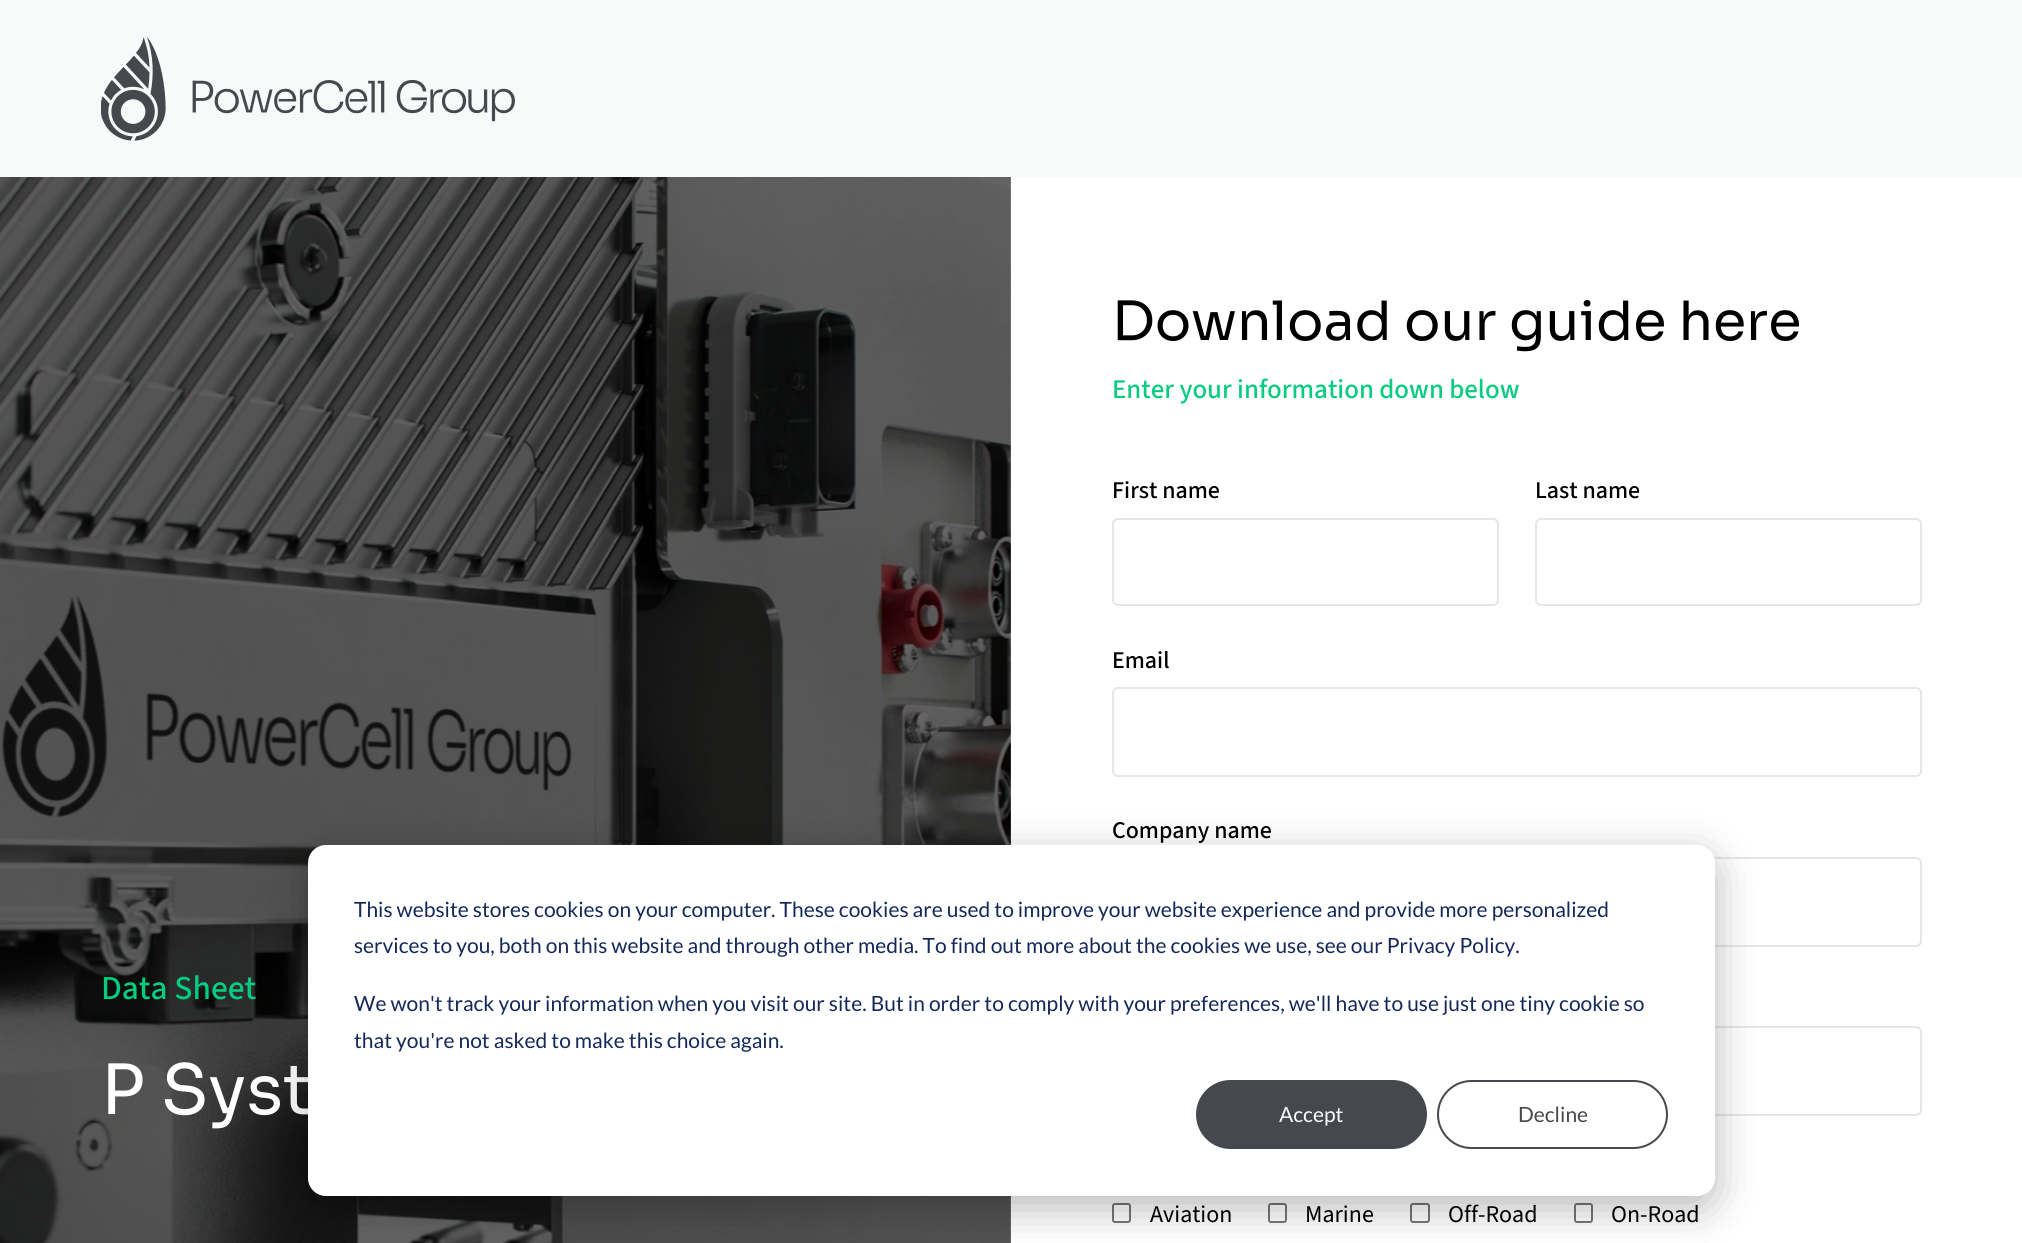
import math
import cairo

surface = cairo.ImageSurface(cairo.FORMAT_RGB24, 2022, 1243)
ctx = cairo.Context(surface)
options = cairo.FontOptions()
options.set_hint_metrics(cairo.HINT_METRICS_OFF)
options.set_hint_style(cairo.HINT_STYLE_NONE)
ctx.set_font_options(options)
ctx.set_miter_limit(4)


def round_rect(x, y, w, h, r):
    ctx.new_sub_path()
    for i, (u, v) in enumerate([(x + w - r, y + h - r), (x + r, y + h - r), (x + r, y + r), (x + w - r, y + r)]):
        ctx.arc(u, v, r, i * math.pi / 2, (i + 1) * math.pi / 2)
    ctx.close_path()


def shadow(x, y, w, h, r, blur, alpha):
    ctx.push_group_with_content(cairo.CONTENT_ALPHA)
    ctx.set_operator(cairo.OPERATOR_SOURCE)
    for i in range(15, -16, -2):
        e = blur * i / 6
        if min(w, h) + 2 * e > 0:
            ctx.set_source_rgba(0, 0, 0, alpha * math.erfc((i - 1) / 8.5) / 2)
            round_rect(x - e, y - e, w + 2 * e, h + 2 * e, max(0, min(r + e + blur * .6, min(w, h) / 2 + e)))
            ctx.fill()
    ctx.mask(ctx.pop_group())


def picture(path, x, y, w, h):
    ctx.save()
    ctx.set_source_surface(cairo.ImageSurface.create_from_png(path), x, y)
    ctx.rectangle(x, y, w, h)
    ctx.fill()
    ctx.restore()


ctx.set_source_rgb(1, 1, 1)
ctx.paint()
ctx.set_source_rgb(0.969, 0.973, 0.973)
ctx.rectangle(0, 0, 2022, 177)
ctx.fill()
picture("img1.png", 101, 36, 414, 105)
picture("img2.png", 0, 177, 1011, 1066)
ctx.select_font_face("Source Sans 3 Medium")
ctx.set_font_size(33.5)
ctx.set_source_rgb(0.02, 0.8, 0.498)
ctx.move_to(101, 999)
ctx.show_text("Data Sheet")
ctx.select_font_face("Sora")
ctx.set_font_size(69)
ctx.set_source_rgb(1, 1, 1)
ctx.move_to(101, 1114)
ctx.show_text("P Syst")
ctx.set_font_size(54)
ctx.set_source_rgb(0, 0, 0)
ctx.move_to(1112, 340)
ctx.show_text("Download our guide here")
ctx.select_font_face("Source Sans 3 Medium")
ctx.set_font_size(27)
ctx.set_source_rgb(0.02, 0.8, 0.498)
ctx.move_to(1112, 398)
ctx.show_text("Enter your information down below")
ctx.set_font_size(24)
ctx.set_source_rgb(0, 0, 0)
ctx.move_to(1112, 498)
ctx.show_text("First name")
round_rect(1113, 519, 385, 86, 5)
ctx.set_source_rgb(0.902, 0.902, 0.902)
ctx.stroke()
ctx.set_source_rgb(0, 0, 0)
ctx.move_to(1535, 498)
ctx.show_text("Last name")
round_rect(1536, 519, 385, 86, 5)
ctx.set_source_rgb(0.902, 0.902, 0.902)
ctx.stroke()
ctx.set_source_rgb(0, 0, 0)
ctx.move_to(1112, 668)
ctx.show_text("Email")
round_rect(1113, 688, 808, 88, 5)
ctx.set_source_rgb(0.902, 0.902, 0.902)
ctx.stroke()
ctx.set_source_rgb(0, 0, 0)
ctx.move_to(1112, 838)
ctx.show_text("Company name")
round_rect(1113, 858, 808, 88, 5)
ctx.set_source_rgb(0.902, 0.902, 0.902)
ctx.stroke()
round_rect(1113, 1027, 808, 88, 5)
ctx.stroke()
round_rect(1113, 1204, 17, 18, 2)
ctx.set_source_rgb(0.463, 0.463, 0.463)
ctx.stroke()
ctx.select_font_face("Source Sans 3")
ctx.set_source_rgb(0, 0, 0)
ctx.move_to(1150, 1222)
ctx.show_text("Aviation")
round_rect(1269, 1204, 17, 18, 2)
ctx.set_source_rgb(0.463, 0.463, 0.463)
ctx.stroke()
ctx.set_source_rgb(0, 0, 0)
ctx.move_to(1305, 1222)
ctx.show_text("Marine")
round_rect(1411, 1204, 18, 18, 2)
ctx.set_source_rgb(0.463, 0.463, 0.463)
ctx.stroke()
ctx.set_source_rgb(0, 0, 0)
ctx.move_to(1448, 1222)
ctx.show_text("Off-Road")
round_rect(1575, 1204, 17, 18, 2)
ctx.set_source_rgb(0.463, 0.463, 0.463)
ctx.stroke()
ctx.set_source_rgb(0, 0, 0)
ctx.move_to(1611, 1222)
ctx.show_text("On-Road")
ctx.set_source_rgb(0, 0, 0)
shadow(308, 857, 1407, 351, 18, 21, 0.28)
ctx.set_source_rgb(1, 1, 1)
round_rect(308, 845, 1407, 351, 18)
ctx.fill()
ctx.select_font_face("Lato")
ctx.set_font_size(21)
ctx.set_source_rgb(0.082, 0.161, 0.353)
ctx.move_to(354, 917)
ctx.show_text("This website stores cookies on your computer. These cookies are used to improve your website experience and provide more personalized")
ctx.move_to(354, 953)
ctx.show_text("services to you, both on this website and through other media. To find out more about the cookies we use, see our Privacy Policy.")
ctx.move_to(354, 1011)
ctx.show_text("We won't track your information when you visit our site. But in order to comply with your preferences, we'll have to use just one tiny cookie so")
ctx.move_to(354, 1048)
ctx.show_text("that you're not asked to make this choice again.")
ctx.set_source_rgb(0.271, 0.282, 0.298)
round_rect(1197, 1081, 229, 67, 33.5)
ctx.fill_preserve()
ctx.stroke()
ctx.set_source_rgb(1, 1, 1)
ctx.move_to(1279, 1122)
ctx.show_text("Accept")
round_rect(1438, 1081, 229, 67, 33.5)
ctx.set_source_rgb(0.271, 0.282, 0.298)
ctx.stroke()
ctx.move_to(1518, 1122)
ctx.show_text("Decline")
surface.write_to_png("page.png")
